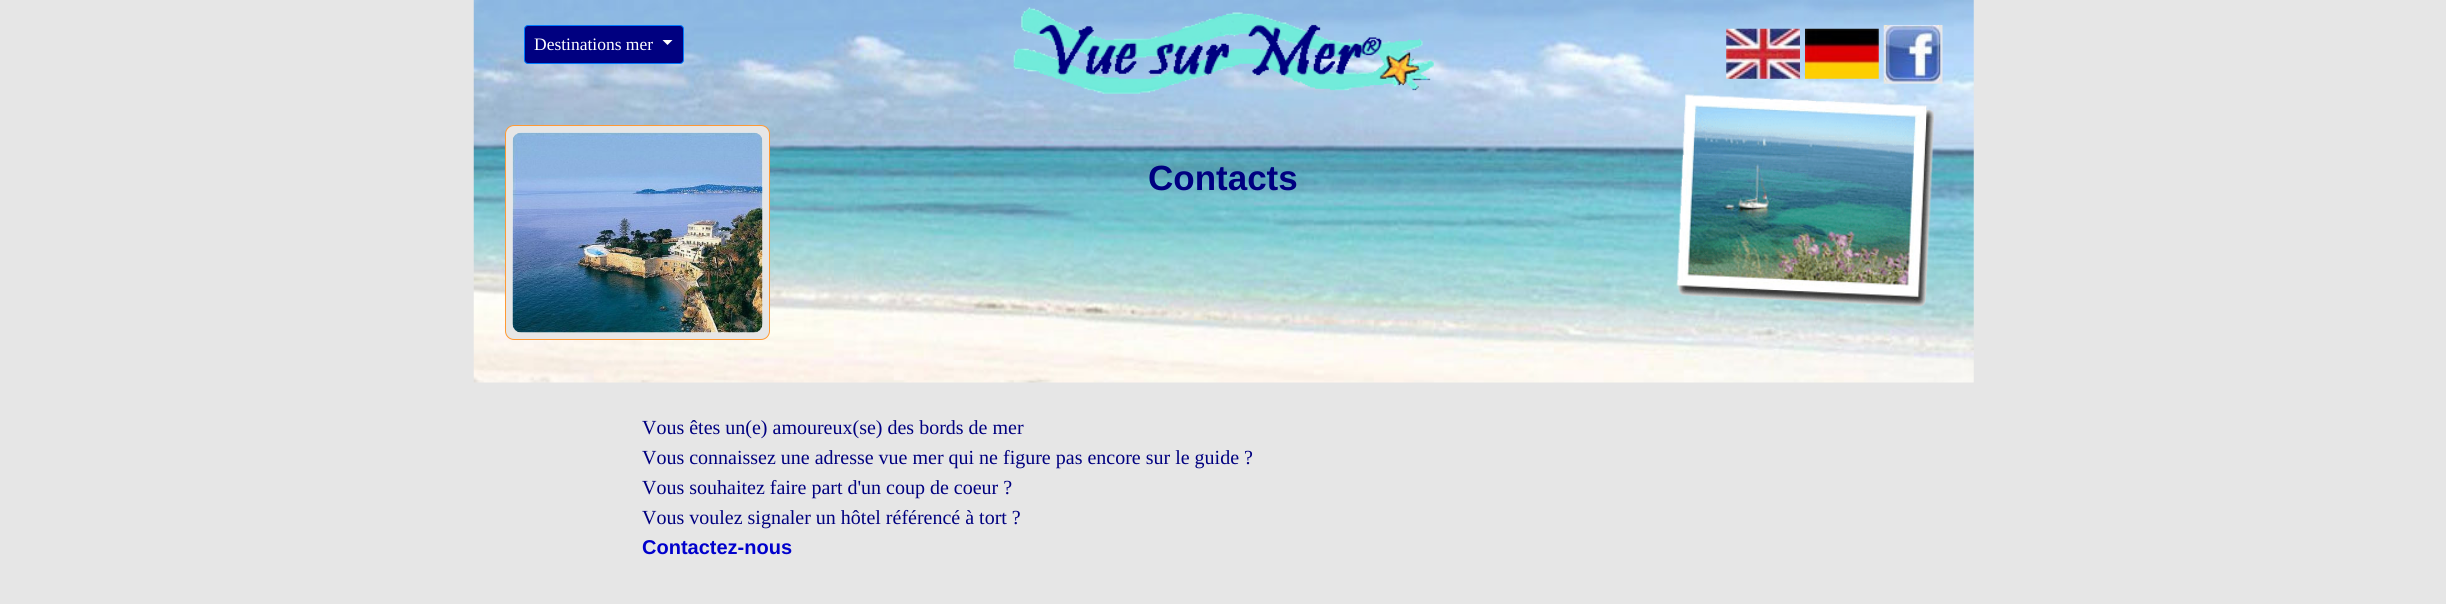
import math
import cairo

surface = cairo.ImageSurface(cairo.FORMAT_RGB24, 2446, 604)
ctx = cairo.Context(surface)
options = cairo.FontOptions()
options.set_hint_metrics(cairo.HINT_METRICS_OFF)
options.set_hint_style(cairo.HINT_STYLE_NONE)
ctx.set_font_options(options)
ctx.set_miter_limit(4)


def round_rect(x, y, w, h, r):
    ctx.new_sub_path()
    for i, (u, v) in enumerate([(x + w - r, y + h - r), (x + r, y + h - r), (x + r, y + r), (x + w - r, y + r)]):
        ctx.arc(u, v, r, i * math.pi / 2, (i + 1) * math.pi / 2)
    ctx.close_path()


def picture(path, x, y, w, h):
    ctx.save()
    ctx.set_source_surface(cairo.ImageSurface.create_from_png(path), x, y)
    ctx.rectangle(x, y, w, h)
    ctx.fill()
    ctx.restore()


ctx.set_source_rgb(0.902, 0.902, 0.902)
ctx.paint()
picture("img1.png", 473, 0, 1501, 383)
ctx.set_source_rgb(0, 0, 0.502)
round_rect(524.5, 25.5, 159, 38, 3.5)
ctx.fill_preserve()
ctx.set_source_rgb(0, 0.482, 1)
ctx.set_line_width(1)
ctx.stroke()
ctx.select_font_face("Liberation Serif")
ctx.set_font_size(17.5)
ctx.set_source_rgb(1, 1, 1)
ctx.move_to(534, 50)
ctx.show_text("Destinations mer")
ctx.new_path()
ctx.move_to(662.5, 40)
ctx.line_to(672.5, 40)
ctx.line_to(667.5, 45)
ctx.close_path()
ctx.fill()
picture("img2.png", 1013, 7, 421, 87)
picture("img3.png", 1726, 28, 74, 51)
picture("img4.png", 1805, 28, 74, 51)
picture("img5.png", 1883, 25, 60, 59)
ctx.set_source_rgb(0.902, 0.902, 0.902)
round_rect(505.5, 125.5, 264, 214, 8.5)
ctx.fill_preserve()
ctx.set_source_rgb(1, 0.6, 0.2)
ctx.stroke()
picture("img6.png", 512, 132, 251, 201)
ctx.select_font_face("Liberation Sans", cairo.FONT_SLANT_NORMAL, cairo.FONT_WEIGHT_BOLD)
ctx.set_font_size(35)
ctx.set_source_rgb(0, 0, 0.502)
ctx.move_to(1148, 190)
ctx.show_text("Contacts")
picture("img7.png", 1676, 94, 258, 213)
ctx.select_font_face("Liberation Serif")
ctx.set_font_size(20)
ctx.move_to(642, 434)
ctx.show_text("Vous êtes un(e) amoureux(se) des bords de mer")
ctx.move_to(642, 464)
ctx.show_text("Vous connaissez une adresse vue mer qui ne figure pas encore sur le guide ?")
ctx.move_to(642, 494)
ctx.show_text("Vous souhaitez faire part d'un coup de coeur ?")
ctx.move_to(642, 524)
ctx.show_text("Vous voulez signaler un hôtel référencé à tort ?")
ctx.select_font_face("Liberation Sans", cairo.FONT_SLANT_NORMAL, cairo.FONT_WEIGHT_BOLD)
ctx.set_source_rgb(0, 0, 0.8)
ctx.move_to(642, 554)
ctx.show_text("Contactez-nous")
surface.write_to_png("page.png")
